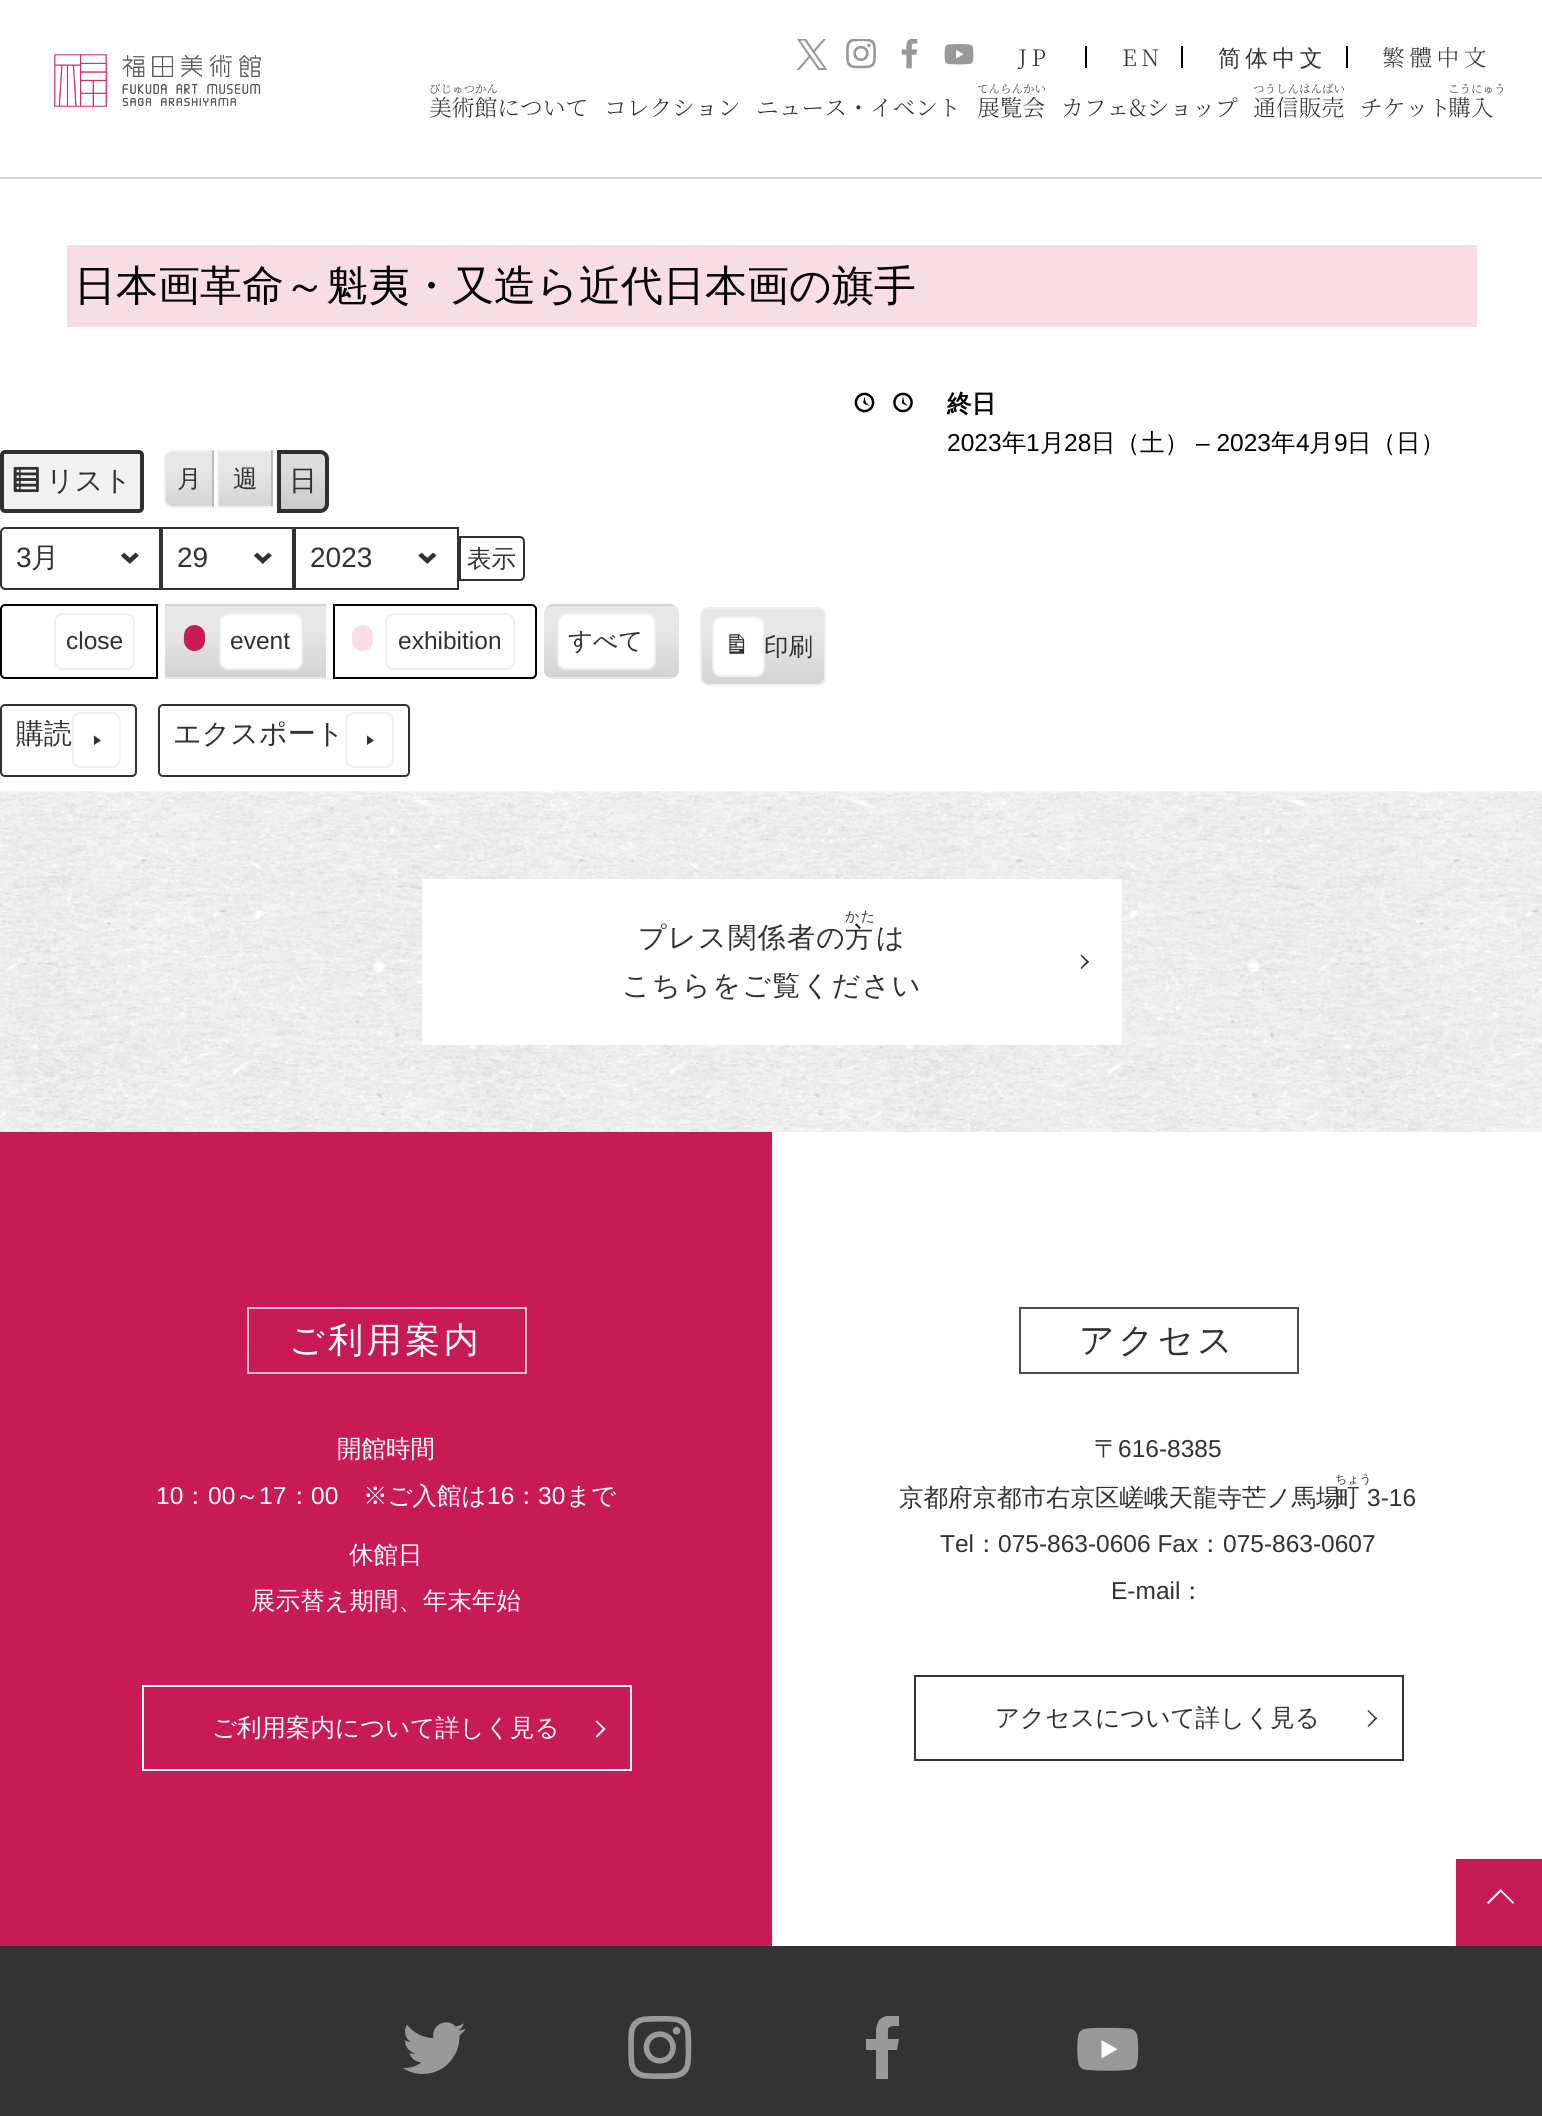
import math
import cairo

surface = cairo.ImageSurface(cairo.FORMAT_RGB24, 1542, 2116)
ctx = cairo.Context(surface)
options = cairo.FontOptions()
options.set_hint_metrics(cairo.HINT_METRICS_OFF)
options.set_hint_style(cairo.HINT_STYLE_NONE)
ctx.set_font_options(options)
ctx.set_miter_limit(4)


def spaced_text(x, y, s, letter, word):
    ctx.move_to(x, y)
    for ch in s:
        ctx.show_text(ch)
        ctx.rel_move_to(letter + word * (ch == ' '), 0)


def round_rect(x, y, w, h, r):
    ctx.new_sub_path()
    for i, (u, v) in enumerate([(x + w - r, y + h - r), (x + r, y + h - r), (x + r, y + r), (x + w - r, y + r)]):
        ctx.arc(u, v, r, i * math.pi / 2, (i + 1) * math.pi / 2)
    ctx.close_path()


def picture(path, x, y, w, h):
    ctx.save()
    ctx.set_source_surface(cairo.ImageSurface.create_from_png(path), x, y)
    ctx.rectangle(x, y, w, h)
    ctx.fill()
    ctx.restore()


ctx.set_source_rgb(1, 1, 1)
ctx.paint()
picture("img1.png", 54, 54, 207, 53)
picture("img2.png", 796, 39, 32, 31)
picture("img3.png", 846, 39, 30, 30)
picture("img4.png", 901, 39, 17, 30)
picture("img5.png", 944, 44, 30, 21)
ctx.select_font_face("Noto Serif JP Light")
ctx.set_font_size(22.75)
ctx.set_source_rgb(0.192, 0.196, 0.2)
spaced_text(1018, 66, "JP", 4.5, 0)
ctx.set_source_rgb(0, 0, 0)
ctx.rectangle(1085, 46, 2, 22)
ctx.fill()
ctx.set_source_rgb(0.192, 0.196, 0.2)
spaced_text(1122, 66, "EN", 4.5, 0)
ctx.set_source_rgb(0, 0, 0)
ctx.rectangle(1181, 46, 2, 22)
ctx.fill()
ctx.select_font_face("WenQuanYi Zen Hei Medium")
ctx.set_source_rgb(0.192, 0.196, 0.2)
spaced_text(1218, 66, "简体中文", 4.5, 0)
ctx.set_source_rgb(0, 0, 0)
ctx.rectangle(1346, 46, 2, 22)
ctx.fill()
ctx.select_font_face("Noto Serif JP Light")
ctx.set_source_rgb(0.192, 0.196, 0.2)
spaced_text(1382, 66, "繁體中文", 4.5, 0)
ctx.set_font_size(11.5)
ctx.move_to(429, 93)
ctx.show_text("びじゅつかん")
ctx.set_font_size(22.75)
ctx.move_to(429, 116)
ctx.show_text("美術館について")
ctx.move_to(604, 116)
ctx.show_text("コレクション")
ctx.move_to(756, 116)
ctx.show_text("ニュース・イベント")
ctx.set_font_size(11.5)
ctx.move_to(977, 93)
ctx.show_text("てんらんかい")
ctx.set_font_size(22.75)
ctx.move_to(977, 116)
ctx.show_text("展覧会")
ctx.move_to(1061, 116)
ctx.show_text("カフェ&ショップ")
ctx.set_font_size(11.5)
ctx.move_to(1253, 93)
ctx.show_text("つうしんはんばい")
ctx.set_font_size(22.75)
ctx.move_to(1253, 116)
ctx.show_text("通信販売")
ctx.move_to(1360, 116)
ctx.show_text("チケット")
ctx.set_font_size(11.5)
ctx.move_to(1448, 93)
ctx.show_text("こうにゅう")
ctx.set_font_size(22.75)
ctx.move_to(1448, 116)
ctx.show_text("購入")
ctx.set_source_rgb(0.82, 0.82, 0.82)
ctx.rectangle(0, 177, 1542, 2)
ctx.fill()
ctx.set_source_rgb(0.969, 0.867, 0.898)
ctx.rectangle(67, 245, 1410, 82)
ctx.fill()
ctx.select_font_face("WenQuanYi Zen Hei Medium")
ctx.set_font_size(42)
ctx.set_source_rgb(0, 0, 0)
ctx.move_to(74, 300)
ctx.show_text("日本画革命～魁夷・又造ら近代日本画の旗手")
picture("img6.png", 854, 392, 21, 21)
picture("img7.png", 893, 392, 20, 21)
ctx.select_font_face("WenQuanYi Zen Hei", cairo.FONT_SLANT_NORMAL, cairo.FONT_WEIGHT_BOLD)
ctx.set_font_size(24.5)
ctx.move_to(947, 412)
ctx.show_text("終日")
ctx.select_font_face("Liberation Sans")
ctx.move_to(947, 451)
ctx.show_text("2023")
ctx.select_font_face("WenQuanYi Zen Hei Medium")
ctx.move_to(1002, 451)
ctx.show_text("年")
ctx.select_font_face("Liberation Sans")
ctx.move_to(1026, 451)
ctx.show_text("1")
ctx.select_font_face("WenQuanYi Zen Hei Medium")
ctx.move_to(1040, 451)
ctx.show_text("月")
ctx.select_font_face("Liberation Sans")
ctx.move_to(1064, 451)
ctx.show_text("28")
ctx.select_font_face("WenQuanYi Zen Hei Medium")
ctx.move_to(1091, 451)
ctx.show_text("日（土）")
ctx.select_font_face("Liberation Sans")
ctx.move_to(1196, 451)
ctx.show_text("– 2023")
ctx.select_font_face("WenQuanYi Zen Hei Medium")
ctx.move_to(1271, 451)
ctx.show_text("年")
ctx.select_font_face("Liberation Sans")
ctx.move_to(1296, 451)
ctx.show_text("4")
ctx.select_font_face("WenQuanYi Zen Hei Medium")
ctx.move_to(1309, 451)
ctx.show_text("月")
ctx.select_font_face("Liberation Sans")
ctx.move_to(1334, 451)
ctx.show_text("9")
ctx.select_font_face("WenQuanYi Zen Hei Medium")
ctx.move_to(1347, 451)
ctx.show_text("日（日）")
ctx.set_source_rgb(0.949, 0.949, 0.949)
round_rect(0, 450, 144, 63, 5)
ctx.fill()
picture("img8.png", 13, 466, 26, 27)
round_rect(2, 452, 140, 59, 3)
ctx.set_source_rgb(0.184, 0.188, 0.188)
ctx.set_line_width(4)
ctx.stroke()
ctx.set_font_size(28)
ctx.set_source_rgb(0.192, 0.196, 0.2)
ctx.move_to(46, 490)
ctx.show_text("リスト")
ctx.save()
ctx.new_path()
ctx.move_to(174, 450)
ctx.line_to(214, 450)
ctx.line_to(214, 508)
ctx.line_to(174, 508)
ctx.curve_to(169, 508, 165, 504, 165, 499)
ctx.line_to(165, 459)
ctx.curve_to(165, 454, 169, 450, 174, 450)
ctx.close_path()
ctx.clip()
gradient = cairo.LinearGradient(189, 452, 189, 397)
gradient.add_color_stop_rgba(0, 0.831, 0.831, 0.831, 1)
gradient.add_color_stop_rgba(0.7, 0.906, 0.906, 0.906, 1)
ctx.set_source(gradient)
ctx.rectangle(165, 450, 49, 2)
ctx.fill()
gradient = cairo.LinearGradient(189, 506, 189, 452)
gradient.add_color_stop_rgba(0, 0.831, 0.831, 0.831, 1)
gradient.add_color_stop_rgba(0.7, 0.906, 0.906, 0.906, 1)
ctx.set_source(gradient)
ctx.rectangle(166, 452, 46, 54)
ctx.fill()
ctx.restore()
ctx.set_source_rgb(0.937, 0.937, 0.937)
ctx.new_path()
ctx.move_to(173, 450)
ctx.curve_to(171, 450, 169, 451, 167, 452)
ctx.line_to(168, 454)
ctx.curve_to(170, 453, 171, 452, 173, 452)
ctx.line_to(211, 452)
ctx.line_to(213, 450)
ctx.close_path()
ctx.fill()
ctx.set_source_rgb(0.733, 0.733, 0.733)
ctx.new_path()
ctx.move_to(214, 450)
ctx.line_to(211, 452)
ctx.line_to(212, 452)
ctx.line_to(212, 506)
ctx.line_to(214, 508)
ctx.close_path()
ctx.fill()
ctx.set_source_rgb(0.937, 0.937, 0.937)
ctx.new_path()
ctx.move_to(214, 508)
ctx.line_to(170, 508)
ctx.line_to(167, 505)
ctx.line_to(168, 504)
ctx.curve_to(169, 505, 171, 506, 173, 506)
ctx.line_to(212, 506)
ctx.close_path()
ctx.fill()
ctx.new_path()
ctx.move_to(164, 456)
ctx.line_to(167, 452)
ctx.line_to(168, 454)
ctx.curve_to(167, 455, 166, 456, 166, 458)
ctx.line_to(166, 499)
ctx.curve_to(166, 501, 167, 503, 168, 504)
ctx.line_to(167, 505)
ctx.line_to(164, 502)
ctx.close_path()
ctx.fill()
ctx.set_font_size(24.5)
ctx.set_source_rgb(0.192, 0.196, 0.2)
ctx.move_to(177, 487)
ctx.show_text("月")
gradient = cairo.LinearGradient(245, 506, 245, 452)
gradient.add_color_stop_rgba(0, 0.831, 0.831, 0.831, 1)
gradient.add_color_stop_rgba(0.7, 0.906, 0.906, 0.906, 1)
ctx.set_source(gradient)
ctx.rectangle(219, 452, 52, 54)
ctx.fill()
ctx.set_source_rgb(0.937, 0.937, 0.937)
ctx.rectangle(217, 450, 56, 2)
ctx.fill()
ctx.set_source_rgb(0.733, 0.733, 0.733)
ctx.rectangle(271, 450, 2, 58)
ctx.fill()
ctx.set_source_rgb(0.937, 0.937, 0.937)
ctx.rectangle(217, 506, 56, 2)
ctx.fill()
ctx.rectangle(217, 450, 2, 58)
ctx.fill()
ctx.set_source_rgb(0.192, 0.196, 0.2)
ctx.move_to(233, 487)
ctx.show_text("週")
ctx.set_source_rgb(0.949, 0.949, 0.949)
ctx.new_path()
ctx.move_to(277, 450)
ctx.line_to(320, 450)
ctx.curve_to(325, 450, 329, 454, 329, 459)
ctx.line_to(329, 504)
ctx.curve_to(329, 509, 325, 513, 320, 513)
ctx.line_to(277, 513)
ctx.close_path()
ctx.fill()
ctx.save()
ctx.new_path()
ctx.move_to(277, 450)
ctx.line_to(320, 450)
ctx.curve_to(325, 450, 329, 454, 329, 459)
ctx.line_to(329, 504)
ctx.curve_to(329, 509, 325, 513, 320, 513)
ctx.line_to(277, 513)
ctx.close_path()
ctx.clip()
gradient = cairo.LinearGradient(303, 511, 303, 452)
gradient.add_color_stop_rgba(0, 0.784, 0.784, 0.784, 0.95)
gradient.add_color_stop_rgba(0.7, 0.859, 0.859, 0.859, 0.95)
ctx.set_source(gradient)
ctx.rectangle(281, 452, 48, 59)
ctx.fill()
ctx.restore()
ctx.new_path()
ctx.move_to(279, 452)
ctx.line_to(320, 452)
ctx.curve_to(324, 452, 327, 455, 327, 459)
ctx.line_to(327, 504)
ctx.curve_to(327, 508, 324, 511, 320, 511)
ctx.line_to(279, 511)
ctx.close_path()
ctx.set_source_rgb(0.184, 0.188, 0.188)
ctx.stroke()
ctx.set_font_size(28)
ctx.set_source_rgb(0.192, 0.196, 0.2)
ctx.move_to(289, 490)
ctx.show_text("日")
picture("img9.png", 121, 552, 18, 12)
ctx.new_path()
ctx.move_to(5, 528)
ctx.line_to(160, 528)
ctx.line_to(160, 589)
ctx.line_to(5, 589)
ctx.curve_to(3, 589, 1, 587, 1, 585)
ctx.line_to(1, 532)
ctx.curve_to(1, 530, 3, 528, 5, 528)
ctx.close_path()
ctx.set_line_width(2)
ctx.stroke()
ctx.select_font_face("Liberation Sans")
ctx.move_to(16, 567)
ctx.show_text("3")
ctx.select_font_face("WenQuanYi Zen Hei Medium")
ctx.move_to(31, 567)
ctx.show_text("月")
picture("img9.png", 254, 552, 18, 12)
ctx.rectangle(162, 528, 131, 61)
ctx.stroke()
ctx.select_font_face("Liberation Sans")
ctx.move_to(177, 567)
ctx.show_text("29")
picture("img10.png", 418, 552, 19, 12)
ctx.rectangle(295, 528, 163, 61)
ctx.stroke()
ctx.move_to(310, 567)
ctx.show_text("2023")
ctx.new_path()
ctx.move_to(460, 537)
ctx.line_to(520, 537)
ctx.curve_to(522, 537, 524, 539, 524, 541)
ctx.line_to(524, 576)
ctx.curve_to(524, 578, 522, 580, 520, 580)
ctx.line_to(460, 580)
ctx.close_path()
ctx.stroke()
ctx.select_font_face("WenQuanYi Zen Hei Medium")
ctx.set_font_size(24.5)
ctx.move_to(467, 567)
ctx.show_text("表示")
ctx.new_path()
ctx.move_to(5, 605)
ctx.line_to(157, 605)
ctx.line_to(157, 678)
ctx.line_to(5, 678)
ctx.curve_to(3, 678, 1, 676, 1, 674)
ctx.line_to(1, 609)
ctx.curve_to(1, 607, 3, 605, 5, 605)
ctx.close_path()
ctx.set_source_rgb(0, 0, 0)
ctx.stroke()
round_rect(55, 614, 79, 55, 8)
ctx.set_source_rgb(0.937, 0.937, 0.937)
ctx.stroke()
ctx.select_font_face("Liberation Sans")
ctx.set_source_rgb(0.192, 0.196, 0.2)
ctx.move_to(66, 649)
ctx.show_text("close")
gradient = cairo.LinearGradient(245, 606, 245, 534)
gradient.add_color_stop_rgba(0, 0.831, 0.831, 0.831, 1)
gradient.add_color_stop_rgba(0.7, 0.906, 0.906, 0.906, 1)
ctx.set_source(gradient)
ctx.rectangle(165, 604, 161, 2)
ctx.fill()
gradient = cairo.LinearGradient(245, 677, 245, 606)
gradient.add_color_stop_rgba(0, 0.831, 0.831, 0.831, 1)
gradient.add_color_stop_rgba(0.7, 0.906, 0.906, 0.906, 1)
ctx.set_source(gradient)
ctx.rectangle(165, 606, 161, 71)
ctx.fill()
gradient = cairo.LinearGradient(245, 749, 245, 677)
gradient.add_color_stop_rgba(0, 0.831, 0.831, 0.831, 1)
gradient.add_color_stop_rgba(0.7, 0.906, 0.906, 0.906, 1)
ctx.set_source(gradient)
ctx.rectangle(165, 677, 161, 2)
ctx.fill()
ctx.set_source_rgb(0.784, 0.102, 0.329)
round_rect(184, 625, 21, 26, 10.5)
ctx.fill()
ctx.set_source_rgb(1, 1, 1)
round_rect(220, 614, 82, 55, 8)
ctx.fill_preserve()
ctx.set_source_rgb(0.937, 0.937, 0.937)
ctx.stroke()
ctx.set_source_rgb(0.192, 0.196, 0.2)
ctx.move_to(230, 649)
ctx.show_text("event")
ctx.new_path()
ctx.move_to(334, 605)
ctx.line_to(532, 605)
ctx.curve_to(534, 605, 536, 607, 536, 609)
ctx.line_to(536, 674)
ctx.curve_to(536, 676, 534, 678, 532, 678)
ctx.line_to(334, 678)
ctx.close_path()
ctx.set_source_rgb(0, 0, 0)
ctx.stroke()
ctx.set_source_rgb(0.969, 0.867, 0.898)
round_rect(352, 625, 21, 26, 10.5)
ctx.fill()
round_rect(386, 614, 128, 55, 8)
ctx.set_source_rgb(0.937, 0.937, 0.937)
ctx.stroke()
ctx.set_source_rgb(0.192, 0.196, 0.2)
ctx.move_to(398, 649)
ctx.show_text("exhibition")
ctx.save()
round_rect(544, 604, 135, 75, 9)
ctx.clip()
gradient = cairo.LinearGradient(612, 606, 612, 534)
gradient.add_color_stop_rgba(0, 0.831, 0.831, 0.831, 1)
gradient.add_color_stop_rgba(0.7, 0.906, 0.906, 0.906, 1)
ctx.set_source(gradient)
ctx.rectangle(544, 604, 135, 2)
ctx.fill()
gradient = cairo.LinearGradient(612, 677, 612, 606)
gradient.add_color_stop_rgba(0, 0.831, 0.831, 0.831, 1)
gradient.add_color_stop_rgba(0.7, 0.906, 0.906, 0.906, 1)
ctx.set_source(gradient)
ctx.rectangle(544, 606, 135, 71)
ctx.fill()
gradient = cairo.LinearGradient(612, 749, 612, 677)
gradient.add_color_stop_rgba(0, 0.831, 0.831, 0.831, 1)
gradient.add_color_stop_rgba(0.7, 0.906, 0.906, 0.906, 1)
ctx.set_source(gradient)
ctx.rectangle(544, 677, 135, 2)
ctx.fill()
ctx.restore()
ctx.set_source_rgb(1, 1, 1)
round_rect(558, 614, 97, 55, 8)
ctx.fill_preserve()
ctx.set_source_rgb(0.937, 0.937, 0.937)
ctx.stroke()
ctx.select_font_face("WenQuanYi Zen Hei Medium")
ctx.set_source_rgb(0.192, 0.196, 0.2)
ctx.move_to(568, 649)
ctx.show_text("すべて")
ctx.save()
round_rect(700, 607, 126, 79, 9)
ctx.clip()
gradient = cairo.LinearGradient(763, 684, 763, 609)
gradient.add_color_stop_rgba(0, 0.831, 0.831, 0.831, 1)
gradient.add_color_stop_rgba(0.7, 0.906, 0.906, 0.906, 1)
ctx.set_source(gradient)
ctx.rectangle(700, 609, 126, 75)
ctx.fill()
ctx.restore()
round_rect(701, 608, 124, 77, 8)
ctx.set_source_rgb(0.937, 0.937, 0.937)
ctx.stroke()
ctx.set_source_rgb(1, 1, 1)
round_rect(713, 617, 51, 59, 8)
ctx.fill_preserve()
ctx.set_source_rgb(0.937, 0.937, 0.937)
ctx.stroke()
picture("img11.png", 729, 634, 16, 20)
ctx.set_source_rgb(0.192, 0.196, 0.2)
ctx.move_to(764, 655)
ctx.show_text("印刷")
round_rect(1, 705, 135, 71, 4)
ctx.stroke()
ctx.set_font_size(28)
ctx.move_to(16, 743)
ctx.show_text("購読")
round_rect(73, 713, 47, 54, 8)
ctx.set_source_rgb(0.937, 0.937, 0.937)
ctx.stroke()
ctx.set_source_rgb(0.192, 0.196, 0.2)
ctx.new_path()
ctx.move_to(94, 735.5)
ctx.line_to(101, 740.5)
ctx.line_to(94, 745)
ctx.close_path()
ctx.fill()
round_rect(159, 705, 250, 71, 4)
ctx.stroke()
ctx.move_to(173, 743)
ctx.show_text("エクスポート")
round_rect(346, 713, 47, 54, 8)
ctx.set_source_rgb(0.937, 0.937, 0.937)
ctx.stroke()
ctx.set_source_rgb(0.192, 0.196, 0.2)
ctx.new_path()
ctx.move_to(367, 735.5)
ctx.line_to(374, 740.5)
ctx.line_to(367, 745)
ctx.close_path()
ctx.fill()
picture("img12.png", 0, 791, 1542, 341)
ctx.set_source_rgb(1, 1, 1)
ctx.rectangle(422, 879, 700, 166)
ctx.fill()
ctx.set_source_rgb(0.192, 0.196, 0.2)
spaced_text(638, 947, "プレス関係者の", 1.4, 0)
ctx.set_font_size(14)
spaced_text(845, 921, "かた", 1.4, 0)
ctx.set_font_size(28)
spaced_text(845, 947, "方", 1.4, 0)
spaced_text(876, 947, "は", 1.4, 0)
ctx.set_source_rgb(0.2, 0.2, 0.2)
ctx.new_path()
ctx.move_to(1081.5, 954.5)
ctx.line_to(1089, 962)
ctx.line_to(1087.5, 963)
ctx.line_to(1080.5, 955.5)
ctx.close_path()
ctx.fill()
ctx.new_path()
ctx.move_to(1087.5, 960.5)
ctx.line_to(1089, 962)
ctx.line_to(1081.5, 969)
ctx.line_to(1080.5, 968)
ctx.close_path()
ctx.fill()
ctx.set_source_rgb(0.192, 0.196, 0.2)
spaced_text(622, 995, "こちらをご覧ください", 1.4, 0)
ctx.set_source_rgb(0.784, 0.102, 0.329)
ctx.rectangle(0, 1132, 772, 814)
ctx.fill()
ctx.rectangle(248, 1308, 278, 65)
ctx.set_source_rgb(0.937, 0.729, 0.8)
ctx.stroke()
ctx.set_font_size(35)
ctx.set_source_rgb(1, 1, 1)
spaced_text(289, 1352, "ご利用案内", 3.5, 0)
ctx.set_font_size(24.5)
ctx.move_to(337, 1457)
ctx.show_text("開館時間")
ctx.select_font_face("Liberation Sans")
ctx.move_to(156, 1504)
ctx.show_text("10")
ctx.select_font_face("WenQuanYi Zen Hei Medium")
ctx.move_to(183, 1504)
ctx.show_text("：")
ctx.select_font_face("Liberation Sans")
ctx.move_to(208, 1504)
ctx.show_text("00")
ctx.select_font_face("WenQuanYi Zen Hei Medium")
ctx.move_to(235, 1504)
ctx.show_text("～")
ctx.select_font_face("Liberation Sans")
ctx.move_to(259, 1504)
ctx.show_text("17")
ctx.select_font_face("WenQuanYi Zen Hei Medium")
ctx.move_to(287, 1504)
ctx.show_text("：")
ctx.select_font_face("Liberation Sans")
ctx.move_to(311, 1504)
ctx.show_text("00")
ctx.select_font_face("WenQuanYi Zen Hei Medium")
ctx.move_to(363, 1504)
ctx.show_text("※ご入館は")
ctx.select_font_face("Liberation Sans")
ctx.move_to(487, 1504)
ctx.show_text("16")
ctx.select_font_face("WenQuanYi Zen Hei Medium")
ctx.move_to(514, 1504)
ctx.show_text("：")
ctx.select_font_face("Liberation Sans")
ctx.move_to(538, 1504)
ctx.show_text("30")
ctx.select_font_face("WenQuanYi Zen Hei Medium")
ctx.move_to(566, 1504)
ctx.show_text("まで")
ctx.move_to(349, 1563)
ctx.show_text("休館日")
ctx.move_to(251, 1609)
ctx.show_text("展示替え期間、年末年始")
ctx.rectangle(143, 1686, 488, 84)
ctx.stroke()
ctx.move_to(212, 1736)
ctx.show_text("ご利用案内について詳しく見る")
ctx.new_path()
ctx.move_to(597, 1720.5)
ctx.line_to(605.5, 1729)
ctx.line_to(604, 1730)
ctx.line_to(595.5, 1721.5)
ctx.close_path()
ctx.fill()
ctx.new_path()
ctx.move_to(604, 1727.5)
ctx.line_to(605.5, 1729)
ctx.line_to(597, 1737.5)
ctx.line_to(595.5, 1736.5)
ctx.close_path()
ctx.fill()
ctx.rectangle(1020, 1308, 278, 65)
ctx.set_source_rgb(0.302, 0.302, 0.302)
ctx.stroke()
ctx.set_font_size(35)
ctx.set_source_rgb(0.192, 0.196, 0.2)
spaced_text(1079, 1352, "アクセス", 3.5, 0)
ctx.set_font_size(24.5)
ctx.move_to(1094, 1457)
ctx.show_text("〒")
ctx.select_font_face("Liberation Sans")
ctx.move_to(1118, 1457)
ctx.show_text("616-8385")
ctx.select_font_face("WenQuanYi Zen Hei Medium")
ctx.move_to(899, 1506)
ctx.show_text("京都府京都市右京区嵯峨天龍寺芒ノ馬場")
ctx.set_font_size(12)
ctx.move_to(1335, 1483)
ctx.show_text("ちょう")
ctx.set_font_size(24.5)
ctx.move_to(1335, 1506)
ctx.show_text("町")
ctx.select_font_face("Liberation Sans")
ctx.move_to(1367, 1506)
ctx.show_text("3-16")
ctx.move_to(940, 1552)
ctx.show_text("Tel")
ctx.select_font_face("WenQuanYi Zen Hei Medium")
ctx.move_to(974, 1552)
ctx.show_text("：")
ctx.select_font_face("Liberation Sans")
ctx.move_to(998, 1552)
ctx.show_text("075-863-0606 Fax")
ctx.select_font_face("WenQuanYi Zen Hei Medium")
ctx.move_to(1198, 1552)
ctx.show_text("：")
ctx.select_font_face("Liberation Sans")
ctx.move_to(1223, 1552)
ctx.show_text("075-863-0607")
ctx.move_to(1111, 1599)
ctx.show_text("E-mail")
ctx.select_font_face("WenQuanYi Zen Hei Medium")
ctx.move_to(1180, 1599)
ctx.show_text("：")
ctx.rectangle(915, 1676, 488, 84)
ctx.set_source_rgb(0.2, 0.2, 0.2)
ctx.stroke()
ctx.set_source_rgb(0.192, 0.196, 0.2)
ctx.move_to(995, 1726)
ctx.show_text("アクセスについて詳しく見る")
ctx.set_source_rgb(0.2, 0.2, 0.2)
ctx.new_path()
ctx.move_to(1368.5, 1710)
ctx.line_to(1377, 1718.5)
ctx.line_to(1376, 1719.5)
ctx.line_to(1367.5, 1711)
ctx.close_path()
ctx.fill()
ctx.new_path()
ctx.move_to(1376, 1717)
ctx.line_to(1377, 1718.5)
ctx.line_to(1368.5, 1727)
ctx.line_to(1367.5, 1726)
ctx.close_path()
ctx.fill()
ctx.rectangle(0, 1946, 1542, 170)
ctx.fill()
ctx.set_source_rgb(0.784, 0.102, 0.329)
ctx.rectangle(1456, 1859, 86, 87)
ctx.fill()
ctx.set_source_rgb(1, 1, 1)
ctx.new_path()
ctx.move_to(1487, 1902.5)
ctx.line_to(1500.5, 1889)
ctx.line_to(1502, 1890.5)
ctx.line_to(1488.5, 1904)
ctx.close_path()
ctx.fill()
ctx.new_path()
ctx.move_to(1499.5, 1890.5)
ctx.line_to(1500.5, 1889)
ctx.line_to(1514, 1902.5)
ctx.line_to(1513, 1904)
ctx.close_path()
ctx.fill()
picture("img13.png", 403, 2022, 63, 52)
picture("img14.png", 628, 2016, 64, 63)
ctx.set_source_rgb(0.6, 0.6, 0.6)
ctx.new_path()
ctx.move_to(888, 2079)
ctx.line_to(888, 2050)
ctx.line_to(897, 2050)
ctx.line_to(899, 2039)
ctx.line_to(888, 2039)
ctx.curve_to(888, 2027, 886, 2026, 899, 2026)
ctx.line_to(899, 2016)
ctx.line_to(887, 2016)
ctx.curve_to(875, 2018, 876, 2030, 876, 2039)
ctx.line_to(866, 2039)
ctx.line_to(866, 2050)
ctx.line_to(876, 2050)
ctx.line_to(876, 2079)
ctx.close_path()
ctx.fill()
picture("img15.png", 1077, 2027, 62, 44)
surface.write_to_png("page.png")
